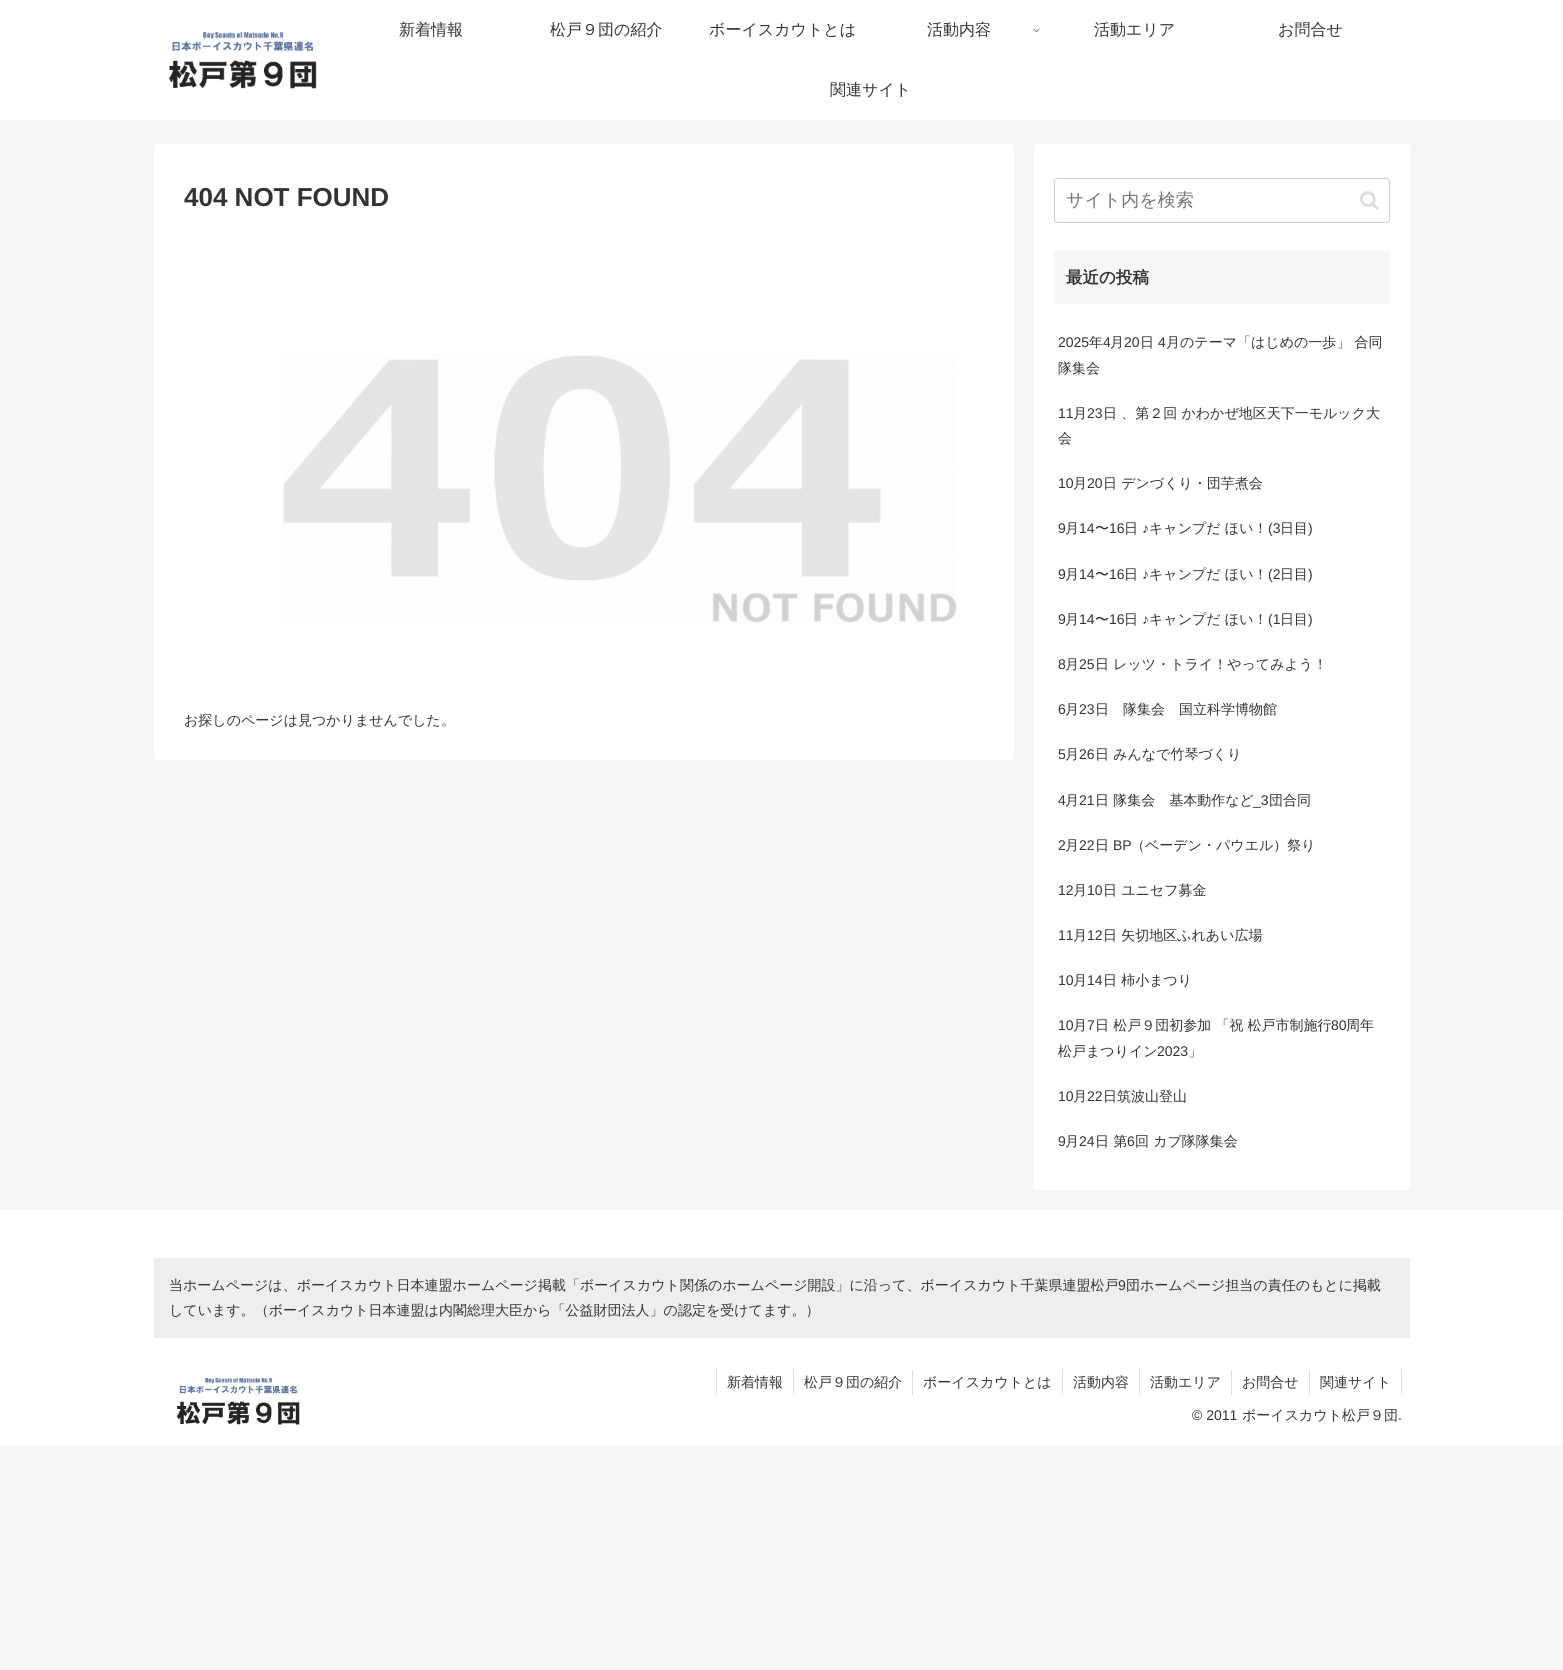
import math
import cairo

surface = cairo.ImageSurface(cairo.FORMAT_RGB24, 1563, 1670)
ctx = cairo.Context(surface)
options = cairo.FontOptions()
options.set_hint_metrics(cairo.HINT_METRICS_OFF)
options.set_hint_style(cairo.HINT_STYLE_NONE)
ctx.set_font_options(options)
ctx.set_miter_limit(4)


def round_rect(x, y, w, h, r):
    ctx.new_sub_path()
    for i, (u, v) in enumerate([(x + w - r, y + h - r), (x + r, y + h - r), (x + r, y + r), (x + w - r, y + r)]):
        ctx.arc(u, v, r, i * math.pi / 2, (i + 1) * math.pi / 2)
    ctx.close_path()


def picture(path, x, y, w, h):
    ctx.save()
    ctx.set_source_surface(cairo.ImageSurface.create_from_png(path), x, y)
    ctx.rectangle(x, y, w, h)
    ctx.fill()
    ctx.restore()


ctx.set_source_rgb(0.957, 0.961, 0.969)
ctx.paint()
ctx.set_source_rgb(1, 1, 1)
ctx.rectangle(0, 0, 1563, 120)
ctx.fill()
picture("img1.png", 168, 32, 149, 57)
ctx.select_font_face("WenQuanYi Zen Hei Medium")
ctx.set_font_size(16)
ctx.set_source_rgb(0.2, 0.2, 0.2)
ctx.move_to(399, 35)
ctx.show_text("新着情報")
ctx.move_to(550, 35)
ctx.show_text("松戸９団の紹介")
ctx.move_to(709, 35)
ctx.show_text("ボーイスカウトとは")
ctx.move_to(927, 35)
ctx.show_text("活動内容")
picture("img2.png", 1033, 28, 7, 5)
ctx.move_to(1094, 35)
ctx.show_text("活動エリア")
ctx.move_to(1278, 35)
ctx.show_text("お問合せ")
ctx.move_to(830, 95)
ctx.show_text("関連サイト")
ctx.set_source_rgb(1, 1, 1)
round_rect(154, 144, 860, 616, 4)
ctx.fill()
ctx.select_font_face("Liberation Sans", cairo.FONT_SLANT_NORMAL, cairo.FONT_WEIGHT_BOLD)
ctx.set_font_size(26)
ctx.set_source_rgb(0.2, 0.2, 0.2)
ctx.move_to(184, 206)
ctx.show_text("404 NOT FOUND")
picture("img3.png", 282, 354, 675, 271)
ctx.select_font_face("WenQuanYi Zen Hei Medium")
ctx.set_font_size(14)
ctx.move_to(184, 725)
ctx.show_text("お探しのページは見つかりませんでした。")
ctx.set_source_rgb(1, 1, 1)
round_rect(1034, 144, 376, 1046, 4)
ctx.fill()
round_rect(1054.5, 178.5, 335, 44, 3.5)
ctx.set_source_rgb(0.8, 0.8, 0.8)
ctx.set_line_width(1)
ctx.stroke()
ctx.set_font_size(18)
ctx.set_source_rgb(0.459, 0.459, 0.459)
ctx.move_to(1066, 206)
ctx.show_text("サイト内を検索")
picture("img4.png", 1360, 191, 19, 19)
ctx.set_source_rgb(0.961, 0.965, 0.969)
round_rect(1054, 251, 336, 53, 2)
ctx.fill()
ctx.select_font_face("WenQuanYi Zen Hei", cairo.FONT_SLANT_NORMAL, cairo.FONT_WEIGHT_BOLD)
ctx.set_font_size(16.5)
ctx.set_source_rgb(0.2, 0.2, 0.2)
ctx.move_to(1066, 283)
ctx.show_text("最近の投稿")
ctx.select_font_face("Liberation Sans")
ctx.set_font_size(14)
ctx.move_to(1058, 347)
ctx.show_text("2025")
ctx.select_font_face("WenQuanYi Zen Hei Medium")
ctx.move_to(1089, 347)
ctx.show_text("年")
ctx.select_font_face("Liberation Sans")
ctx.move_to(1103, 347)
ctx.show_text("4")
ctx.select_font_face("WenQuanYi Zen Hei Medium")
ctx.move_to(1110, 347)
ctx.show_text("月")
ctx.select_font_face("Liberation Sans")
ctx.move_to(1124, 347)
ctx.show_text("20")
ctx.select_font_face("WenQuanYi Zen Hei Medium")
ctx.move_to(1140, 347)
ctx.show_text("日")
ctx.select_font_face("Liberation Sans")
ctx.move_to(1158, 347)
ctx.show_text("4")
ctx.select_font_face("WenQuanYi Zen Hei Medium")
ctx.move_to(1166, 347)
ctx.show_text("月のテーマ「はじめの一歩」 合同")
ctx.move_to(1058, 373)
ctx.show_text("隊集会")
ctx.select_font_face("Liberation Sans")
ctx.move_to(1058, 418)
ctx.show_text("11")
ctx.select_font_face("WenQuanYi Zen Hei Medium")
ctx.move_to(1073, 418)
ctx.show_text("月")
ctx.select_font_face("Liberation Sans")
ctx.move_to(1087, 418)
ctx.show_text("23")
ctx.select_font_face("WenQuanYi Zen Hei Medium")
ctx.move_to(1103, 418)
ctx.show_text("日 、第２回 かわかぜ地区天下一モルック大")
ctx.move_to(1058, 443)
ctx.show_text("会")
ctx.select_font_face("Liberation Sans")
ctx.move_to(1058, 488)
ctx.show_text("10")
ctx.select_font_face("WenQuanYi Zen Hei Medium")
ctx.move_to(1073, 488)
ctx.show_text("月")
ctx.select_font_face("Liberation Sans")
ctx.move_to(1087, 488)
ctx.show_text("20")
ctx.select_font_face("WenQuanYi Zen Hei Medium")
ctx.move_to(1103, 488)
ctx.show_text("日 デンづくり・団芋煮会")
ctx.select_font_face("Liberation Sans")
ctx.move_to(1058, 533)
ctx.show_text("9")
ctx.select_font_face("WenQuanYi Zen Hei Medium")
ctx.move_to(1065, 533)
ctx.show_text("月")
ctx.select_font_face("Liberation Sans")
ctx.move_to(1079, 533)
ctx.show_text("14")
ctx.select_font_face("WenQuanYi Zen Hei Medium")
ctx.move_to(1095, 533)
ctx.show_text("〜")
ctx.select_font_face("Liberation Sans")
ctx.move_to(1109, 533)
ctx.show_text("16")
ctx.select_font_face("WenQuanYi Zen Hei Medium")
ctx.move_to(1124, 533)
ctx.show_text("日")
ctx.select_font_face("Liberation Sans")
ctx.move_to(1142, 533)
ctx.show_text("♪")
ctx.select_font_face("WenQuanYi Zen Hei Medium")
ctx.move_to(1149, 533)
ctx.show_text("キャンプだ ほい！")
ctx.select_font_face("Liberation Sans")
ctx.move_to(1268, 533)
ctx.show_text("(3")
ctx.select_font_face("WenQuanYi Zen Hei Medium")
ctx.move_to(1280, 533)
ctx.show_text("日目")
ctx.select_font_face("Liberation Sans")
ctx.move_to(1308, 533)
ctx.show_text(")")
ctx.move_to(1058, 579)
ctx.show_text("9")
ctx.select_font_face("WenQuanYi Zen Hei Medium")
ctx.move_to(1065, 579)
ctx.show_text("月")
ctx.select_font_face("Liberation Sans")
ctx.move_to(1079, 579)
ctx.show_text("14")
ctx.select_font_face("WenQuanYi Zen Hei Medium")
ctx.move_to(1095, 579)
ctx.show_text("〜")
ctx.select_font_face("Liberation Sans")
ctx.move_to(1109, 579)
ctx.show_text("16")
ctx.select_font_face("WenQuanYi Zen Hei Medium")
ctx.move_to(1124, 579)
ctx.show_text("日")
ctx.select_font_face("Liberation Sans")
ctx.move_to(1142, 579)
ctx.show_text("♪")
ctx.select_font_face("WenQuanYi Zen Hei Medium")
ctx.move_to(1149, 579)
ctx.show_text("キャンプだ ほい！")
ctx.select_font_face("Liberation Sans")
ctx.move_to(1268, 579)
ctx.show_text("(2")
ctx.select_font_face("WenQuanYi Zen Hei Medium")
ctx.move_to(1280, 579)
ctx.show_text("日目")
ctx.select_font_face("Liberation Sans")
ctx.move_to(1308, 579)
ctx.show_text(")")
ctx.move_to(1058, 624)
ctx.show_text("9")
ctx.select_font_face("WenQuanYi Zen Hei Medium")
ctx.move_to(1065, 624)
ctx.show_text("月")
ctx.select_font_face("Liberation Sans")
ctx.move_to(1079, 624)
ctx.show_text("14")
ctx.select_font_face("WenQuanYi Zen Hei Medium")
ctx.move_to(1095, 624)
ctx.show_text("〜")
ctx.select_font_face("Liberation Sans")
ctx.move_to(1109, 624)
ctx.show_text("16")
ctx.select_font_face("WenQuanYi Zen Hei Medium")
ctx.move_to(1124, 624)
ctx.show_text("日")
ctx.select_font_face("Liberation Sans")
ctx.move_to(1142, 624)
ctx.show_text("♪")
ctx.select_font_face("WenQuanYi Zen Hei Medium")
ctx.move_to(1149, 624)
ctx.show_text("キャンプだ ほい！")
ctx.select_font_face("Liberation Sans")
ctx.move_to(1268, 624)
ctx.show_text("(1")
ctx.select_font_face("WenQuanYi Zen Hei Medium")
ctx.move_to(1280, 624)
ctx.show_text("日目")
ctx.select_font_face("Liberation Sans")
ctx.move_to(1308, 624)
ctx.show_text(")")
ctx.move_to(1058, 669)
ctx.show_text("8")
ctx.select_font_face("WenQuanYi Zen Hei Medium")
ctx.move_to(1065, 669)
ctx.show_text("月")
ctx.select_font_face("Liberation Sans")
ctx.move_to(1079, 669)
ctx.show_text("25")
ctx.select_font_face("WenQuanYi Zen Hei Medium")
ctx.move_to(1095, 669)
ctx.show_text("日 レッツ・トライ！やってみよう！")
ctx.select_font_face("Liberation Sans")
ctx.move_to(1058, 714)
ctx.show_text("6")
ctx.select_font_face("WenQuanYi Zen Hei Medium")
ctx.move_to(1065, 714)
ctx.show_text("月")
ctx.select_font_face("Liberation Sans")
ctx.move_to(1079, 714)
ctx.show_text("23")
ctx.select_font_face("WenQuanYi Zen Hei Medium")
ctx.move_to(1095, 714)
ctx.show_text("日　隊集会　国立科学博物館")
ctx.select_font_face("Liberation Sans")
ctx.move_to(1058, 759)
ctx.show_text("5")
ctx.select_font_face("WenQuanYi Zen Hei Medium")
ctx.move_to(1065, 759)
ctx.show_text("月")
ctx.select_font_face("Liberation Sans")
ctx.move_to(1079, 759)
ctx.show_text("26")
ctx.select_font_face("WenQuanYi Zen Hei Medium")
ctx.move_to(1095, 759)
ctx.show_text("日 みんなで竹琴づくり")
ctx.select_font_face("Liberation Sans")
ctx.move_to(1058, 805)
ctx.show_text("4")
ctx.select_font_face("WenQuanYi Zen Hei Medium")
ctx.move_to(1065, 805)
ctx.show_text("月")
ctx.select_font_face("Liberation Sans")
ctx.move_to(1079, 805)
ctx.show_text("21")
ctx.select_font_face("WenQuanYi Zen Hei Medium")
ctx.move_to(1095, 805)
ctx.show_text("日 隊集会　基本動作など")
ctx.select_font_face("Liberation Sans")
ctx.move_to(1253, 805)
ctx.show_text("_3")
ctx.select_font_face("WenQuanYi Zen Hei Medium")
ctx.move_to(1269, 805)
ctx.show_text("団合同")
ctx.select_font_face("Liberation Sans")
ctx.move_to(1058, 850)
ctx.show_text("2")
ctx.select_font_face("WenQuanYi Zen Hei Medium")
ctx.move_to(1065, 850)
ctx.show_text("月")
ctx.select_font_face("Liberation Sans")
ctx.move_to(1079, 850)
ctx.show_text("22")
ctx.select_font_face("WenQuanYi Zen Hei Medium")
ctx.move_to(1095, 850)
ctx.show_text("日")
ctx.select_font_face("Liberation Sans")
ctx.move_to(1113, 850)
ctx.show_text("BP")
ctx.select_font_face("WenQuanYi Zen Hei Medium")
ctx.move_to(1131, 850)
ctx.show_text("（ベーデン・パウエル）祭り")
ctx.select_font_face("Liberation Sans")
ctx.move_to(1058, 895)
ctx.show_text("12")
ctx.select_font_face("WenQuanYi Zen Hei Medium")
ctx.move_to(1073, 895)
ctx.show_text("月")
ctx.select_font_face("Liberation Sans")
ctx.move_to(1087, 895)
ctx.show_text("10")
ctx.select_font_face("WenQuanYi Zen Hei Medium")
ctx.move_to(1103, 895)
ctx.show_text("日 ユニセフ募金")
ctx.select_font_face("Liberation Sans")
ctx.move_to(1058, 940)
ctx.show_text("11")
ctx.select_font_face("WenQuanYi Zen Hei Medium")
ctx.move_to(1073, 940)
ctx.show_text("月")
ctx.select_font_face("Liberation Sans")
ctx.move_to(1087, 940)
ctx.show_text("12")
ctx.select_font_face("WenQuanYi Zen Hei Medium")
ctx.move_to(1103, 940)
ctx.show_text("日 矢切地区ふれあい広場")
ctx.select_font_face("Liberation Sans")
ctx.move_to(1058, 985)
ctx.show_text("10")
ctx.select_font_face("WenQuanYi Zen Hei Medium")
ctx.move_to(1073, 985)
ctx.show_text("月")
ctx.select_font_face("Liberation Sans")
ctx.move_to(1087, 985)
ctx.show_text("14")
ctx.select_font_face("WenQuanYi Zen Hei Medium")
ctx.move_to(1103, 985)
ctx.show_text("日 柿小まつり")
ctx.select_font_face("Liberation Sans")
ctx.move_to(1058, 1030)
ctx.show_text("10")
ctx.select_font_face("WenQuanYi Zen Hei Medium")
ctx.move_to(1073, 1030)
ctx.show_text("月")
ctx.select_font_face("Liberation Sans")
ctx.move_to(1087, 1030)
ctx.show_text("7")
ctx.select_font_face("WenQuanYi Zen Hei Medium")
ctx.move_to(1095, 1030)
ctx.show_text("日 松戸９団初参加 「祝 松戸市制施行")
ctx.select_font_face("Liberation Sans")
ctx.move_to(1331, 1030)
ctx.show_text("80")
ctx.select_font_face("WenQuanYi Zen Hei Medium")
ctx.move_to(1346, 1030)
ctx.show_text("周年")
ctx.move_to(1058, 1056)
ctx.show_text("松戸まつりイン")
ctx.select_font_face("Liberation Sans")
ctx.move_to(1157, 1056)
ctx.show_text("2023")
ctx.select_font_face("WenQuanYi Zen Hei Medium")
ctx.move_to(1188, 1056)
ctx.show_text("」")
ctx.select_font_face("Liberation Sans")
ctx.move_to(1058, 1101)
ctx.show_text("10")
ctx.select_font_face("WenQuanYi Zen Hei Medium")
ctx.move_to(1073, 1101)
ctx.show_text("月")
ctx.select_font_face("Liberation Sans")
ctx.move_to(1087, 1101)
ctx.show_text("22")
ctx.select_font_face("WenQuanYi Zen Hei Medium")
ctx.move_to(1103, 1101)
ctx.show_text("日筑波山登山")
ctx.select_font_face("Liberation Sans")
ctx.move_to(1058, 1146)
ctx.show_text("9")
ctx.select_font_face("WenQuanYi Zen Hei Medium")
ctx.move_to(1065, 1146)
ctx.show_text("月")
ctx.select_font_face("Liberation Sans")
ctx.move_to(1079, 1146)
ctx.show_text("24")
ctx.select_font_face("WenQuanYi Zen Hei Medium")
ctx.move_to(1095, 1146)
ctx.show_text("日 第")
ctx.select_font_face("Liberation Sans")
ctx.move_to(1127, 1146)
ctx.show_text("6")
ctx.select_font_face("WenQuanYi Zen Hei Medium")
ctx.move_to(1135, 1146)
ctx.show_text("回 カブ隊隊集会")
ctx.set_source_rgb(1, 1, 1)
ctx.rectangle(0, 1210, 1563, 235)
ctx.fill()
ctx.set_source_rgb(0.933, 0.933, 0.933)
ctx.rectangle(154, 1258, 1256, 80)
ctx.fill()
ctx.set_source_rgb(0.2, 0.2, 0.2)
ctx.move_to(169, 1290)
ctx.show_text("当ホームページは、ボーイスカウト日本連盟ホームページ掲載「ボーイスカウト関係のホームページ開設」に沿って、ボーイスカウト千葉県連盟松戸")
ctx.select_font_face("Liberation Sans")
ctx.move_to(1118, 1290)
ctx.show_text("9")
ctx.select_font_face("WenQuanYi Zen Hei Medium")
ctx.move_to(1126, 1290)
ctx.show_text("団ホームページ担当の責任のもとに掲載")
ctx.move_to(169, 1315)
ctx.show_text("しています。（ボーイスカウト日本連盟は内閣総理大臣から「公益財団法人」の認定を受けてます。）")
picture("img5.png", 176, 1378, 124, 47)
ctx.set_source_rgb(0.867, 0.867, 0.867)
ctx.rectangle(716, 1370, 1, 25)
ctx.fill()
ctx.set_source_rgb(0.2, 0.2, 0.2)
ctx.move_to(727, 1387)
ctx.show_text("新着情報")
ctx.set_source_rgb(0.867, 0.867, 0.867)
ctx.rectangle(793, 1370, 1, 25)
ctx.fill()
ctx.set_source_rgb(0.2, 0.2, 0.2)
ctx.move_to(804, 1387)
ctx.show_text("松戸９団の紹介")
ctx.set_source_rgb(0.867, 0.867, 0.867)
ctx.rectangle(912, 1370, 1, 25)
ctx.fill()
ctx.set_source_rgb(0.2, 0.2, 0.2)
ctx.move_to(923, 1387)
ctx.show_text("ボーイスカウトとは")
ctx.set_source_rgb(0.867, 0.867, 0.867)
ctx.rectangle(1062, 1370, 1, 25)
ctx.fill()
ctx.set_source_rgb(0.2, 0.2, 0.2)
ctx.move_to(1073, 1387)
ctx.show_text("活動内容")
ctx.set_source_rgb(0.867, 0.867, 0.867)
ctx.rectangle(1139, 1370, 1, 25)
ctx.fill()
ctx.set_source_rgb(0.2, 0.2, 0.2)
ctx.move_to(1150, 1387)
ctx.show_text("活動エリア")
ctx.set_source_rgb(0.867, 0.867, 0.867)
ctx.rectangle(1231, 1370, 1, 25)
ctx.fill()
ctx.set_source_rgb(0.2, 0.2, 0.2)
ctx.move_to(1242, 1387)
ctx.show_text("お問合せ")
ctx.set_source_rgb(0.867, 0.867, 0.867)
ctx.rectangle(1401, 1370, 1, 25)
ctx.fill()
ctx.rectangle(1309, 1370, 1, 25)
ctx.fill()
ctx.set_source_rgb(0.2, 0.2, 0.2)
ctx.move_to(1320, 1387)
ctx.show_text("関連サイト")
ctx.select_font_face("Liberation Sans")
ctx.move_to(1192, 1420)
ctx.show_text("© 2011")
ctx.select_font_face("WenQuanYi Zen Hei Medium")
ctx.move_to(1242, 1420)
ctx.show_text("ボーイスカウト松戸９団")
ctx.select_font_face("Liberation Sans")
ctx.move_to(1398, 1420)
ctx.show_text(".")
surface.write_to_png("page.png")
